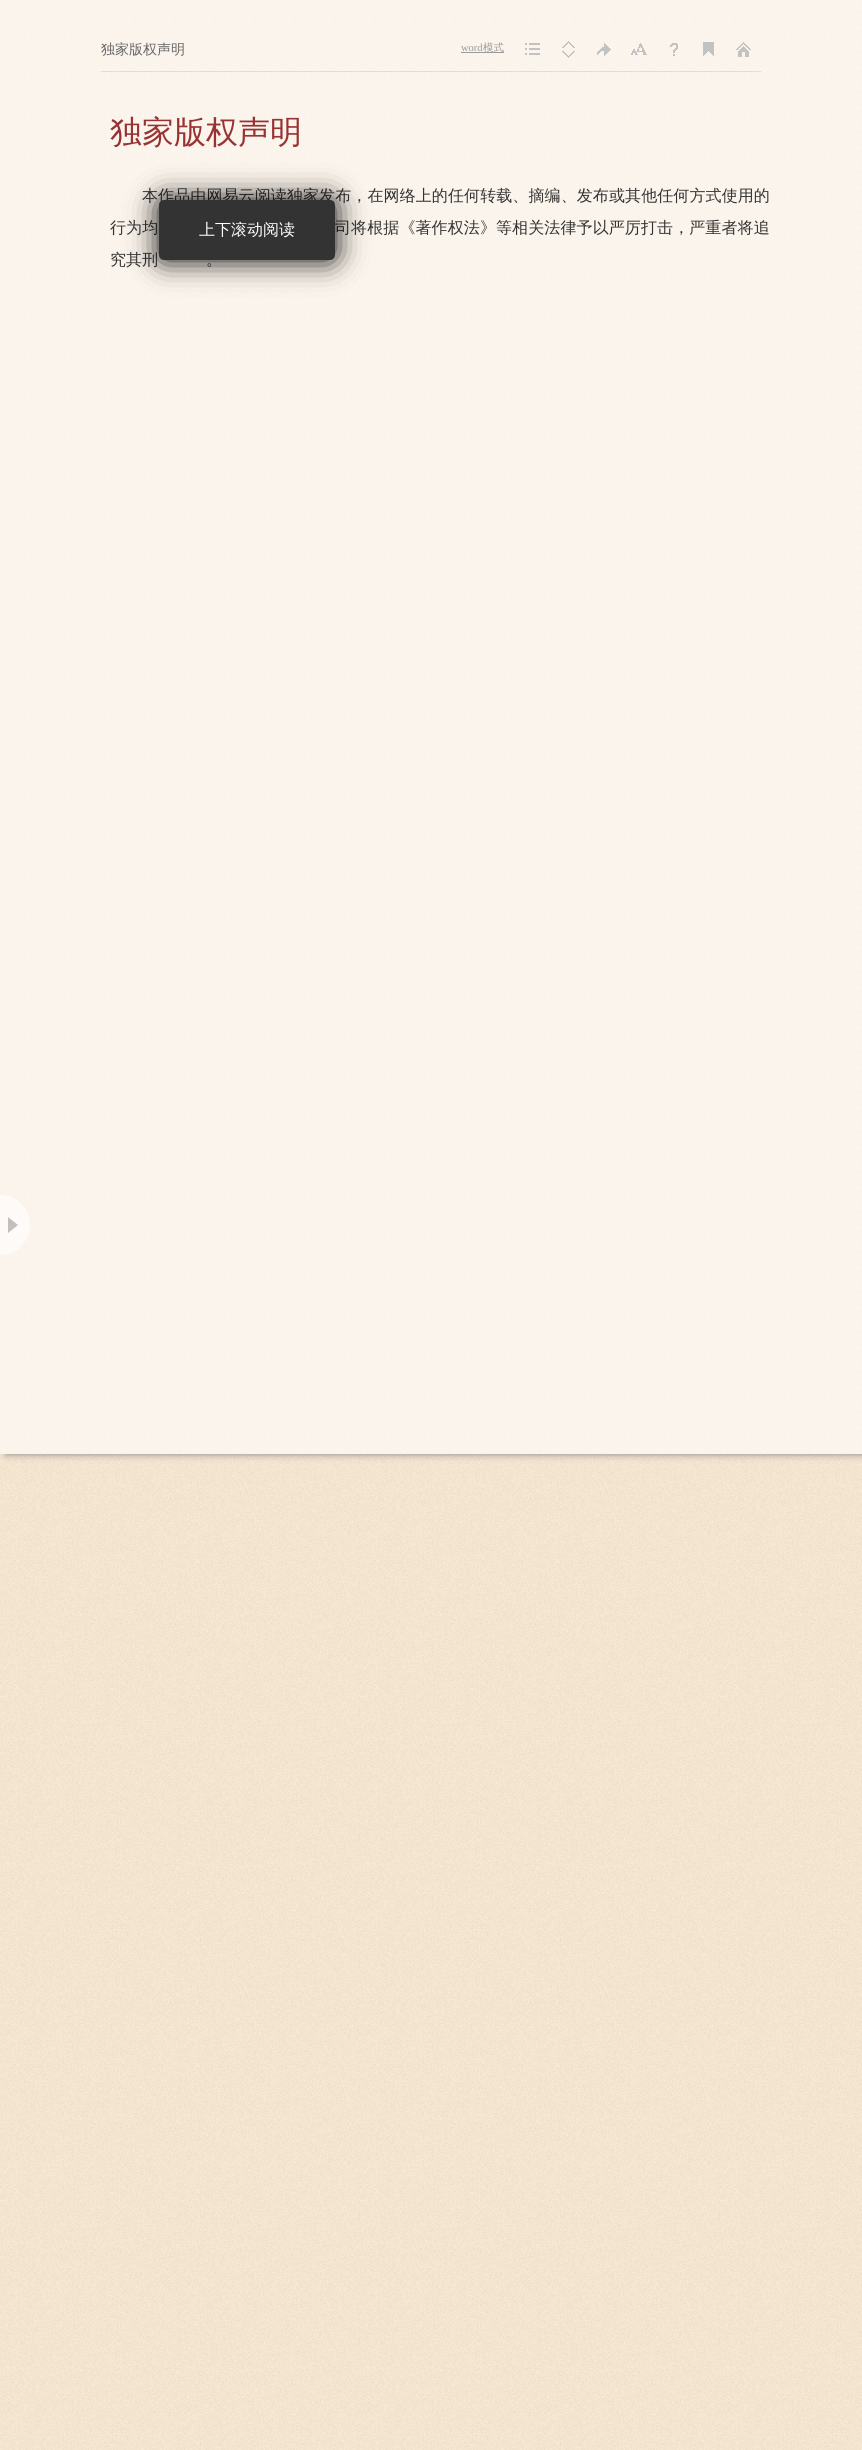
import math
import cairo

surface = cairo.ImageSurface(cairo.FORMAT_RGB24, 862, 2450)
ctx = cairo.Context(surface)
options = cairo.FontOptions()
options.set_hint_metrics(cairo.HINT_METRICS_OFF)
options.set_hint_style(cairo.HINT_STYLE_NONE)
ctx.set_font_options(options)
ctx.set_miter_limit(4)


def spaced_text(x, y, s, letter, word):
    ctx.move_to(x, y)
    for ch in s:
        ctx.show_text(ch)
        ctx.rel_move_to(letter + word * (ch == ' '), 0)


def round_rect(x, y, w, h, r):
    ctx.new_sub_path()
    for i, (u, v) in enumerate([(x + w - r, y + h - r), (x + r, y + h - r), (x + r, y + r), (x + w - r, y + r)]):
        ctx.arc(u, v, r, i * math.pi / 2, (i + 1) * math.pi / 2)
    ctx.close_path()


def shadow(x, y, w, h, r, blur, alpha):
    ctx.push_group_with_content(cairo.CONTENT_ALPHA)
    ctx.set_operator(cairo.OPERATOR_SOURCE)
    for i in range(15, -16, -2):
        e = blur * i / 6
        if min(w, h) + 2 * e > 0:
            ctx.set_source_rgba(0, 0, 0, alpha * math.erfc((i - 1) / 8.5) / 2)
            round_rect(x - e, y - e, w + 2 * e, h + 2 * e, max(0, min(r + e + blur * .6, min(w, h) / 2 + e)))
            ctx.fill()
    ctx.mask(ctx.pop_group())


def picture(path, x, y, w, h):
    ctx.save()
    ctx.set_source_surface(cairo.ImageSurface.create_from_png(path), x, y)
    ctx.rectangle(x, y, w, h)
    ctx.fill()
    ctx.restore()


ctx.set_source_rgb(1, 1, 1)
ctx.paint()
picture("img1.png", 0, 1454, 862, 996)
ctx.set_source_rgb(0.514, 0.514, 0.514)
shadow(6, 66, 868, 1388, 0, 4, 1)
picture("img10.png", 0, 0, 862, 60)
picture("img11.png", 0, 60, 862, 1394)
picture("img2.png", 101, 18, 660, 52)
ctx.set_source_rgb(0.871, 0.871, 0.871)
ctx.rectangle(101, 71, 660, 1)
ctx.fill()
ctx.select_font_face("WenQuanYi Zen Hei Medium")
ctx.set_font_size(14)
ctx.set_source_rgb(0.4, 0.4, 0.4)
ctx.move_to(101, 54)
ctx.show_text("独家版权声明")
ctx.select_font_face("Liberation Serif")
ctx.set_font_size(10.5)
ctx.set_source_rgb(0.6, 0.6, 0.6)
ctx.move_to(461, 51)
ctx.show_text("word")
ctx.rectangle(461, 52, 43, 1)
ctx.fill()
ctx.select_font_face("WenQuanYi Zen Hei Medium")
ctx.move_to(483, 51)
ctx.show_text("模式")
picture("img3.png", 525, 43, 15, 12)
picture("img4.png", 562, 41, 13, 17)
picture("img5.png", 597, 43, 14, 13)
picture("img6.png", 631, 43, 16, 12)
picture("img7.png", 670, 43, 8, 13)
picture("img8.png", 703, 42, 11, 14)
picture("img9.png", 736, 42, 15, 15)
ctx.set_font_size(32)
ctx.set_source_rgb(0.6, 0.2, 0.2)
ctx.move_to(110, 143)
ctx.show_text("独家版权声明")
ctx.set_font_size(16)
ctx.set_source_rgb(0.2, 0.2, 0.2)
spaced_text(142, 201, "本作品由网易云阅读独家发布，在网络上的任何转载、摘编、发布或其他任何方式使用的", 0.1, 0)
spaced_text(110, 233, "行为均", 0.1, 0)
spaced_text(335, 233, "司将根据《著作权法》等相关法律予以严厉打击，严重者将追", 0.1, 0)
ctx.move_to(110, 265)
ctx.show_text("究其刑")
ctx.move_to(206, 265)
ctx.show_text("。")
picture("img12.png", 0, 1195, 30, 60)
ctx.set_source_rgb(0, 0, 0)
shadow(159, 200, 176, 60, 5, 15, 1)
ctx.set_source_rgb(0.2, 0.2, 0.2)
round_rect(159, 200, 176, 60, 5)
ctx.fill()
ctx.set_source_rgb(1, 1, 1)
ctx.move_to(199, 235)
ctx.show_text("上下滚动阅读")
surface.write_to_png("page.png")
